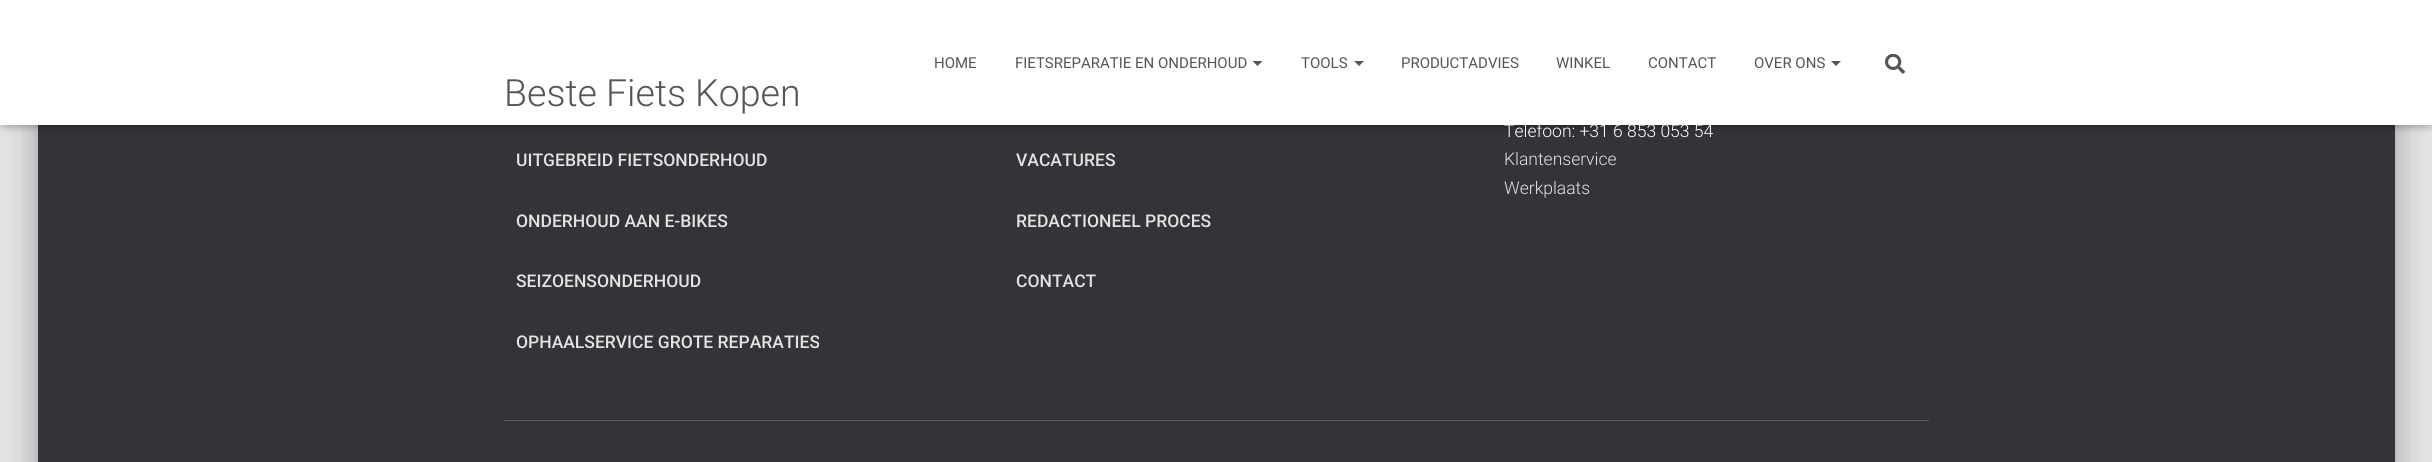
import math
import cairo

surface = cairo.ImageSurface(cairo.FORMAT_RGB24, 2432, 462)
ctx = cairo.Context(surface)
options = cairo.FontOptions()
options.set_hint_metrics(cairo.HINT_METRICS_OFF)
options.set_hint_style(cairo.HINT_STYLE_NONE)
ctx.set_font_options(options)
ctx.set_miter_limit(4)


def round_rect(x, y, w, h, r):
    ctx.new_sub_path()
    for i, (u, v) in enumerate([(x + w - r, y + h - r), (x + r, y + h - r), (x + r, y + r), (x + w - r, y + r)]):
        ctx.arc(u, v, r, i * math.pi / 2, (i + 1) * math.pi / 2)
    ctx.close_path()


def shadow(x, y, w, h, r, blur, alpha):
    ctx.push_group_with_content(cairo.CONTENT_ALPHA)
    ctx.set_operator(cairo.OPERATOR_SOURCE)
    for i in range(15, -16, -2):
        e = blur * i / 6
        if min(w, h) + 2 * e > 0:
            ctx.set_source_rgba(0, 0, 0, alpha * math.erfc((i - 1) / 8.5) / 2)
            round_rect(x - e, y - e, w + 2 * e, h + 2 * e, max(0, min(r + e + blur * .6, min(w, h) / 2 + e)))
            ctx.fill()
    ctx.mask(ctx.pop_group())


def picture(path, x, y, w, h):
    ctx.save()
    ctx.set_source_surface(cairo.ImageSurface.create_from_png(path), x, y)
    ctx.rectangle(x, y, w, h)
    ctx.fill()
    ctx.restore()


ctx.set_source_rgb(0.898, 0.898, 0.898)
ctx.paint()
ctx.set_source_rgb(0, 0, 0)
shadow(44, -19, 2345, 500, 1, 6, 0.2)
shadow(31, -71, 2370, 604, 14, 19, 0.12)
shadow(35, -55, 2363, 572, 10, 15, 0.14)
ctx.set_source_rgb(0.196, 0.204, 0.216)
ctx.rectangle(38, 125, 2357, 337)
ctx.fill()
ctx.set_source_rgb(0, 0, 0)
shadow(3, 8, 2427, 120, 0, 3, 0.1)
shadow(0, 1, 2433, 125, 0, 6, 0.12)
shadow(8, 9, 2417, 110, 0, 6, 0.42)
ctx.set_source_rgb(1, 1, 1)
ctx.rectangle(0, 0, 2432, 125)
ctx.fill()
ctx.select_font_face("Roboto")
ctx.set_font_size(15)
ctx.set_source_rgb(0.333, 0.333, 0.333)
ctx.move_to(934, 68)
ctx.show_text("HOME")
ctx.move_to(1015, 68)
ctx.show_text("FIETSREPARATIE EN ONDERHOUD")
ctx.new_path()
ctx.move_to(1252.5, 61)
ctx.line_to(1262.5, 61)
ctx.line_to(1257.5, 66)
ctx.close_path()
ctx.fill()
ctx.move_to(1301, 68)
ctx.show_text("TOOLS")
ctx.new_path()
ctx.move_to(1354, 61)
ctx.line_to(1364, 61)
ctx.line_to(1359, 66)
ctx.close_path()
ctx.fill()
ctx.move_to(1401, 68)
ctx.show_text("PRODUCTADVIES")
ctx.move_to(1556, 68)
ctx.show_text("WINKEL")
ctx.move_to(1648, 68)
ctx.show_text("CONTACT")
ctx.move_to(1754, 68)
ctx.show_text("OVER ONS")
ctx.new_path()
ctx.move_to(1831, 61)
ctx.line_to(1841, 61)
ctx.line_to(1836, 66)
ctx.close_path()
ctx.fill()
picture("img1.png", 1885, 54, 20, 20)
ctx.select_font_face("Roboto Light")
ctx.set_font_size(37.5)
ctx.move_to(504, 106)
ctx.show_text("Beste Fiets Kopen")
ctx.select_font_face("Roboto Medium")
ctx.set_font_size(17.5)
ctx.set_source_rgb(0.886, 0.89, 0.89)
ctx.move_to(516, 166)
ctx.show_text("UITGEBREID FIETSONDERHOUD")
ctx.move_to(516, 227)
ctx.show_text("ONDERHOUD AAN E-BIKES")
ctx.move_to(516, 287)
ctx.show_text("SEIZOENSONDERHOUD")
ctx.move_to(516, 348)
ctx.show_text("OPHAALSERVICE GROTE REPARATIES")
ctx.move_to(1016, 166)
ctx.show_text("VACATURES")
ctx.move_to(1016, 227)
ctx.show_text("REDACTIONEEL PROCES")
ctx.move_to(1016, 287)
ctx.show_text("CONTACT")
ctx.select_font_face("Roboto Light")
ctx.set_source_rgb(1, 1, 1)
ctx.move_to(1504, 137)
ctx.show_text("Telefoon: +31 6 853 053 54")
ctx.set_source_rgb(0.886, 0.89, 0.89)
ctx.move_to(1504, 165)
ctx.show_text("Klantenservice")
ctx.move_to(1504, 194)
ctx.show_text("Werkplaats")
ctx.set_source_rgb(0.357, 0.365, 0.373)
ctx.rectangle(504, 420, 1425, 1)
ctx.fill()
surface.write_to_png("page.png")
